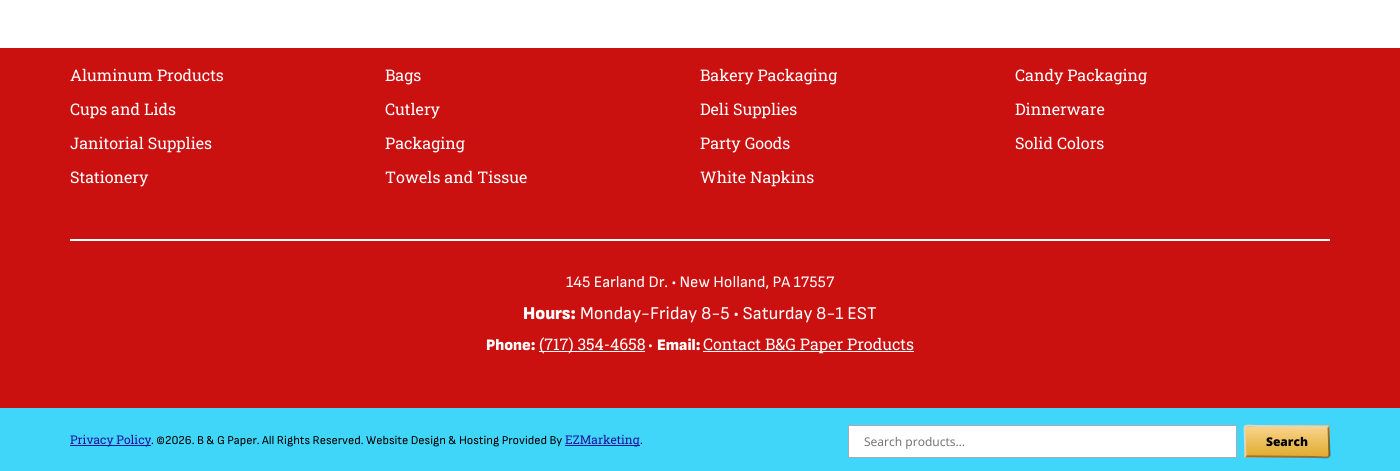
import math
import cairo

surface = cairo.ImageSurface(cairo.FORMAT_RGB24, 1400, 471)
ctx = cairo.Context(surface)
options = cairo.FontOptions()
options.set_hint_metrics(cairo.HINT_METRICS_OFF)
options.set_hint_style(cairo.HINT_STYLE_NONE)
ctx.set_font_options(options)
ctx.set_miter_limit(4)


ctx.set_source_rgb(1, 1, 1)
ctx.paint()
ctx.set_source_rgb(0.796, 0.063, 0.063)
ctx.rectangle(0, 48, 1400, 360)
ctx.fill()
ctx.select_font_face("Roboto Slab")
ctx.set_font_size(16)
ctx.set_source_rgb(1, 1, 1)
ctx.move_to(70, 81)
ctx.show_text("Aluminum Products")
ctx.move_to(385, 81)
ctx.show_text("Bags")
ctx.move_to(700, 81)
ctx.show_text("Bakery Packaging")
ctx.move_to(1015, 81)
ctx.show_text("Candy Packaging")
ctx.move_to(70, 115)
ctx.show_text("Cups and Lids")
ctx.move_to(385, 115)
ctx.show_text("Cutlery")
ctx.move_to(700, 115)
ctx.show_text("Deli Supplies")
ctx.move_to(1015, 115)
ctx.show_text("Dinnerware")
ctx.move_to(70, 149)
ctx.show_text("Janitorial Supplies")
ctx.move_to(385, 149)
ctx.show_text("Packaging")
ctx.move_to(700, 149)
ctx.show_text("Party Goods")
ctx.move_to(1015, 149)
ctx.show_text("Solid Colors")
ctx.move_to(70, 183)
ctx.show_text("Stationery")
ctx.move_to(385, 183)
ctx.show_text("Towels and Tissue")
ctx.move_to(700, 183)
ctx.show_text("White Napkins")
ctx.rectangle(70, 239, 1260, 2)
ctx.fill()
ctx.select_font_face("Sofia Sans")
ctx.move_to(566, 287)
ctx.show_text("145 Earland Dr. • New Holland, PA 17557")
ctx.select_font_face("Sofia Sans Black")
ctx.set_font_size(18)
ctx.move_to(523, 319)
ctx.show_text("Hours:")
ctx.select_font_face("Sofia Sans")
ctx.move_to(580, 319)
ctx.show_text("Monday-Friday 8-5 • Saturday 8-1 EST")
ctx.select_font_face("Sofia Sans Black")
ctx.set_font_size(16)
ctx.move_to(486, 350)
ctx.show_text("Phone:")
ctx.rectangle(539, 351, 106, 1)
ctx.fill()
ctx.select_font_face("Roboto Slab")
ctx.move_to(539, 350)
ctx.show_text("(717) 354-4658")
ctx.select_font_face("Sofia Sans")
ctx.move_to(648, 350)
ctx.show_text("•")
ctx.select_font_face("Sofia Sans Black")
ctx.move_to(657, 350)
ctx.show_text("Email:")
ctx.rectangle(703, 351, 211, 1)
ctx.fill()
ctx.select_font_face("Roboto Slab")
ctx.move_to(703, 350)
ctx.show_text("Contact B&G Paper Products")
ctx.set_source_rgb(0.251, 0.839, 0.973)
ctx.rectangle(0, 408, 1400, 63)
ctx.fill()
ctx.set_source_rgb(0.118, 0.075, 0.62)
ctx.rectangle(70, 445, 81, 1)
ctx.fill()
ctx.set_font_size(12)
ctx.move_to(70, 444)
ctx.show_text("Privacy Policy")
ctx.select_font_face("Sofia Sans")
ctx.set_source_rgb(0, 0, 0)
ctx.move_to(151, 444)
ctx.show_text(". ©2026. B & G Paper. All Rights Reserved. Website Design & Hosting Provided By")
ctx.set_source_rgb(0.118, 0.075, 0.62)
ctx.rectangle(565, 445, 75, 1)
ctx.fill()
ctx.select_font_face("Roboto Slab")
ctx.move_to(565, 444)
ctx.show_text("EZMarketing")
ctx.select_font_face("Sofia Sans")
ctx.set_source_rgb(0, 0, 0)
ctx.move_to(640, 444)
ctx.show_text(".")
ctx.set_source_rgb(1, 1, 1)
ctx.rectangle(848.5, 425.5, 388, 32)
ctx.fill_preserve()
ctx.set_source_rgb(0.655, 0.667, 0.686)
ctx.set_line_width(1)
ctx.stroke()
ctx.select_font_face("Noto Sans")
ctx.set_source_rgb(0.459, 0.459, 0.459)
ctx.move_to(864, 446)
ctx.show_text("Search products…")
gradient = cairo.LinearGradient(1287, 427, 1287, 398)
gradient.add_color_stop_rgba(0, 0.882, 0.675, 0.188, 1)
gradient.add_color_stop_rgba(1, 0.973, 0.827, 0.545, 1)
ctx.set_source(gradient)
ctx.new_path()
ctx.move_to(1246, 425)
ctx.line_to(1328, 425)
ctx.curve_to(1329, 425, 1330, 426, 1330, 427)
ctx.line_to(1244, 427)
ctx.curve_to(1244, 426, 1245, 425, 1246, 425)
ctx.close_path()
ctx.fill()
gradient = cairo.LinearGradient(1287, 456, 1287, 427)
gradient.add_color_stop_rgba(0, 0.882, 0.675, 0.188, 1)
gradient.add_color_stop_rgba(1, 0.973, 0.827, 0.545, 1)
ctx.set_source(gradient)
ctx.rectangle(1244, 427, 86, 29)
ctx.fill()
gradient = cairo.LinearGradient(1287, 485, 1287, 456)
gradient.add_color_stop_rgba(0, 0.882, 0.675, 0.188, 1)
gradient.add_color_stop_rgba(1, 0.973, 0.827, 0.545, 1)
ctx.set_source(gradient)
ctx.new_path()
ctx.move_to(1244, 456)
ctx.line_to(1330, 456)
ctx.curve_to(1330, 457, 1329, 458, 1328, 458)
ctx.line_to(1246, 458)
ctx.curve_to(1245, 458, 1244, 457, 1244, 456)
ctx.close_path()
ctx.fill()
ctx.new_path()
ctx.move_to(1328.5, 426.5)
ctx.line_to(1329, 441.5)
ctx.curve_to(1329, 461, 1333.5, 457, 1314.5, 457)
ctx.line_to(1245.5, 456.5)
ctx.set_source_rgba(0, 0, 0, 0.45)
ctx.set_line_width(2)
ctx.stroke()
ctx.new_path()
ctx.move_to(1245.5, 456.5)
ctx.line_to(1245, 441.5)
ctx.curve_to(1245, 422, 1240.5, 426, 1259.5, 426)
ctx.line_to(1328.5, 426.5)
ctx.set_source_rgb(0.863, 0.839, 0.776)
ctx.stroke()
ctx.select_font_face("Noto Sans Black")
ctx.set_source_rgb(0, 0, 0)
ctx.move_to(1266, 446)
ctx.show_text("Search")
surface.write_to_png("page.png")
